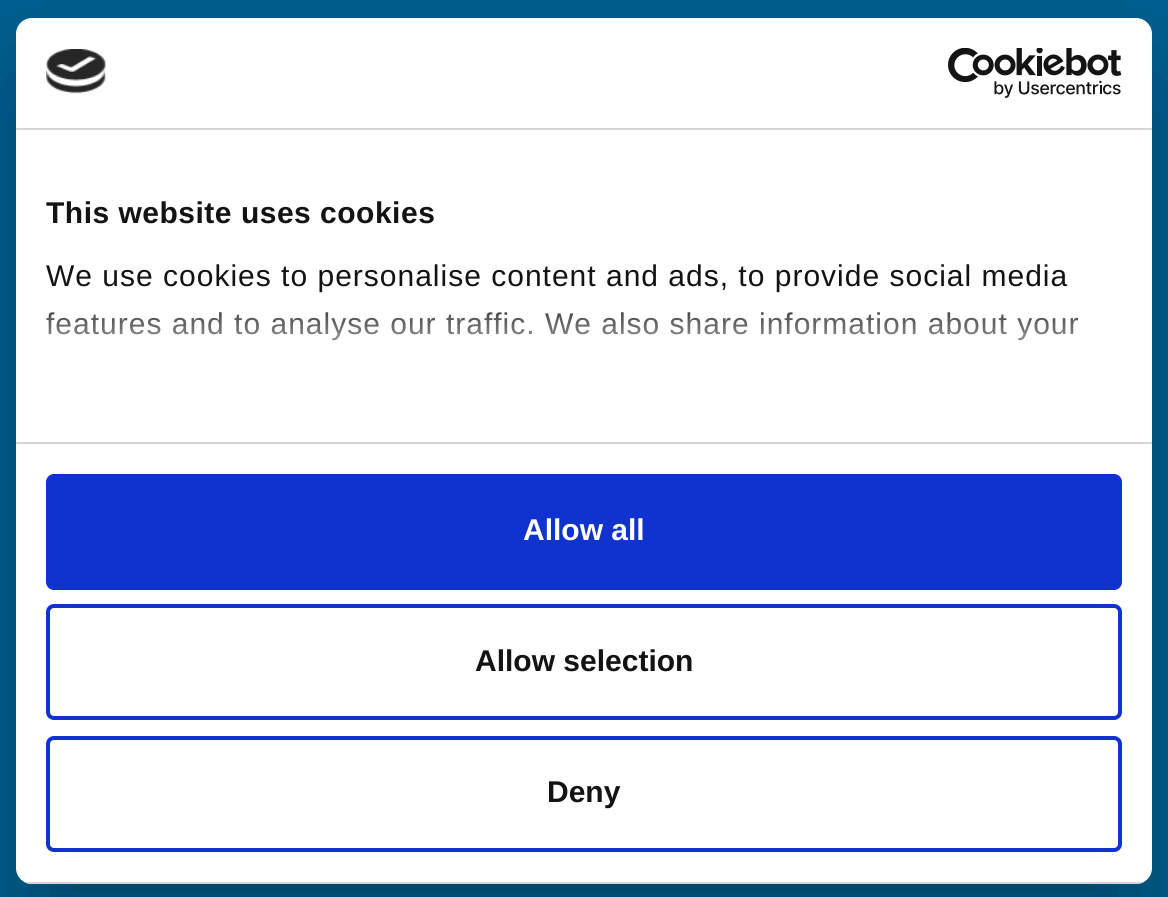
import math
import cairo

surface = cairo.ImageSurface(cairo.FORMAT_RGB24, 1168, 897)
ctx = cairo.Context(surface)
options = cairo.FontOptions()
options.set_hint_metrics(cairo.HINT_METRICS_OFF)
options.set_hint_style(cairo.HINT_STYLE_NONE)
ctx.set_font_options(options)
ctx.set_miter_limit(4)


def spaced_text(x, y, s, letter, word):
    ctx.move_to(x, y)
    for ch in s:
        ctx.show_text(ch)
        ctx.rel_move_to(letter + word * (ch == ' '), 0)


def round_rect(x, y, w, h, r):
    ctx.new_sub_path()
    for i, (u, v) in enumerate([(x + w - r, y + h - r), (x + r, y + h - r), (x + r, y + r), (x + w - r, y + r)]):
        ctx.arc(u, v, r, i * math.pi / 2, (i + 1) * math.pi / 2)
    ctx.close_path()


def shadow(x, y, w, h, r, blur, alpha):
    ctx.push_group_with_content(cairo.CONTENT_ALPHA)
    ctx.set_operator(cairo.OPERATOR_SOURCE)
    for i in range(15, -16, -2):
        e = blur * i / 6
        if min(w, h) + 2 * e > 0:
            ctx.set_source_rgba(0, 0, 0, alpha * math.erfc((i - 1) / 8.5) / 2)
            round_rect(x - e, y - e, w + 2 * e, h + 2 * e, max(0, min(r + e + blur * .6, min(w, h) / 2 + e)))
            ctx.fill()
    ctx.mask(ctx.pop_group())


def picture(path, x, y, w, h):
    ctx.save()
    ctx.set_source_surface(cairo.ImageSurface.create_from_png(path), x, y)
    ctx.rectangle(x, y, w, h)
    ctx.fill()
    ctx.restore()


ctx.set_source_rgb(0, 0.38, 0.573)
ctx.paint()
ctx.set_source_rgb(0, 0, 0)
shadow(16, 82, 1136, 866, 16, 68, 0.3)
ctx.set_source_rgb(1, 1, 1)
round_rect(16, 18, 1136, 866, 16)
ctx.fill()
ctx.set_source_rgb(0.839, 0.839, 0.839)
ctx.rectangle(16, 128, 1136, 2)
ctx.fill()
picture("img1.png", 46, 49, 60, 45)
picture("img2.png", 948, 48, 174, 50)
ctx.rectangle(16, 442, 1136, 2)
ctx.fill()
ctx.select_font_face("Liberation Sans", cairo.FONT_SLANT_NORMAL, cairo.FONT_WEIGHT_BOLD)
ctx.set_font_size(30)
ctx.set_source_rgb(0.078, 0.078, 0.078)
spaced_text(46, 223, "This website uses cookies", 0.5, 0)
ctx.select_font_face("Liberation Sans")
spaced_text(46, 286, "We use cookies to personalise content and ads, to provide social media", 1, 0)
spaced_text(46, 334, "features and to analyse our traffic. We also share information about your", 1, 0)
gradient = cairo.LinearGradient(571, 441, 571, 291)
gradient.add_color_stop_rgba(0, 1, 1, 1, 1)
gradient.add_color_stop_rgba(0.5, 1, 1, 1, 0.8)
gradient.add_color_stop_rgba(1, 1, 1, 1, 0)
ctx.set_source(gradient)
ctx.rectangle(46, 312, 1032, 29)
ctx.fill()
ctx.save()
round_rect(16, 18, 1136, 866, 16)
ctx.clip()
ctx.set_source_rgb(0.839, 0.839, 0.839)
ctx.rectangle(16, 882, 1136, 2)
ctx.fill()
ctx.restore()
ctx.set_source_rgb(0.063, 0.196, 0.812)
round_rect(48, 476, 1072, 112, 6)
ctx.fill_preserve()
ctx.set_line_width(4)
ctx.stroke()
ctx.select_font_face("Liberation Sans", cairo.FONT_SLANT_NORMAL, cairo.FONT_WEIGHT_BOLD)
ctx.set_source_rgb(1, 1, 1)
ctx.move_to(523, 540)
ctx.show_text("Allow all")
round_rect(48, 606, 1072, 112, 6)
ctx.set_source_rgb(0.063, 0.196, 0.812)
ctx.stroke()
ctx.set_source_rgb(0.078, 0.078, 0.078)
ctx.move_to(475, 671)
ctx.show_text("Allow selection")
round_rect(48, 738, 1072, 112, 6)
ctx.set_source_rgb(0.063, 0.196, 0.812)
ctx.stroke()
ctx.set_source_rgb(0.078, 0.078, 0.078)
ctx.move_to(547, 802)
ctx.show_text("Deny")
surface.write_to_png("page.png")
